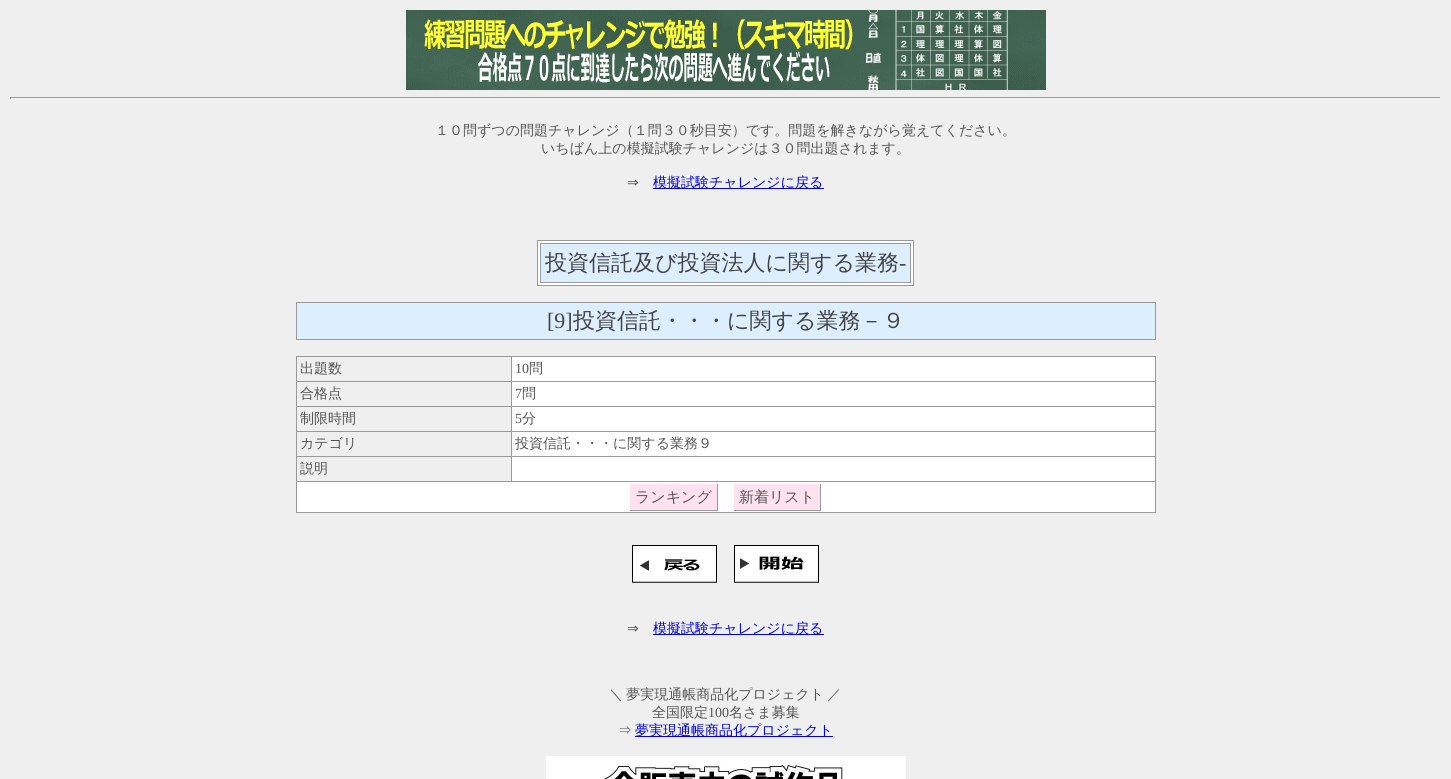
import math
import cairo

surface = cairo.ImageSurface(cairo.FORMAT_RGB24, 1451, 779)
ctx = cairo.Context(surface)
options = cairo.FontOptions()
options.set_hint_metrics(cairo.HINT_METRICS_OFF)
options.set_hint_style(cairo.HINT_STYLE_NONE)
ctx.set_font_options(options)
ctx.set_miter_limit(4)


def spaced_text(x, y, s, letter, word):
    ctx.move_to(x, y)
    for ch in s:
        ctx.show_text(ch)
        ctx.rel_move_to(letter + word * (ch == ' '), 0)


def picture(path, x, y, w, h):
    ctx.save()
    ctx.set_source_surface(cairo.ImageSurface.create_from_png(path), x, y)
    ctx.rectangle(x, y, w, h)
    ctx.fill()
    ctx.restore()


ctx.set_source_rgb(0.937, 0.937, 0.937)
ctx.paint()
picture("img1.png", 406, 10, 640, 80)
ctx.set_source_rgb(0.624, 0.624, 0.624)
ctx.rectangle(10, 97, 1431, 1)
ctx.fill()
ctx.set_source_rgb(0.933, 0.933, 0.933)
ctx.rectangle(1440, 97, 1, 2)
ctx.fill()
ctx.set_source_rgb(0.624, 0.624, 0.624)
ctx.rectangle(10, 97, 1, 2)
ctx.fill()
ctx.select_font_face("WenQuanYi Zen Hei Medium")
ctx.set_font_size(14)
ctx.set_source_rgb(0.333, 0.333, 0.333)
ctx.move_to(435, 135)
ctx.show_text("１０問ずつの問題チャレンジ（１問３０秒目安）です。問題を解きながら覚えてください。")
ctx.move_to(541, 153)
ctx.show_text("いちばん上の模擬試験チャレンジは３０問出題されます。")
ctx.select_font_face("DejaVu Sans")
ctx.move_to(627, 187)
ctx.show_text("⇒")
ctx.set_source_rgb(0, 0, 0.933)
ctx.rectangle(653, 188, 171, 1)
ctx.fill()
ctx.select_font_face("WenQuanYi Zen Hei Medium")
ctx.move_to(653, 187)
ctx.show_text("模擬試験チャレンジに戻る")
ctx.set_source_rgb(0.6, 0.6, 0.6)
ctx.rectangle(537, 240, 377, 46)
ctx.fill()
ctx.set_source_rgb(1, 1, 1)
ctx.rectangle(538, 241, 375, 44)
ctx.fill()
ctx.set_source_rgb(0.6, 0.6, 0.6)
ctx.rectangle(540, 243, 371, 40)
ctx.fill()
ctx.set_source_rgb(0.867, 0.933, 1)
ctx.rectangle(541, 244, 369, 38)
ctx.fill()
ctx.set_font_size(22)
ctx.set_source_rgb(0.267, 0.267, 0.267)
ctx.move_to(545, 270)
ctx.show_text("投資信託及び投資法人に関する業務")
ctx.select_font_face("Liberation Serif")
ctx.move_to(899, 270)
ctx.show_text("-")
ctx.set_source_rgb(0.6, 0.6, 0.6)
ctx.rectangle(296, 302, 860, 38)
ctx.fill()
ctx.set_source_rgb(0.867, 0.933, 1)
ctx.rectangle(297, 303, 858, 36)
ctx.fill()
ctx.set_source_rgb(0.267, 0.267, 0.267)
ctx.move_to(547, 328)
ctx.show_text("[9]")
ctx.select_font_face("WenQuanYi Zen Hei Medium")
ctx.move_to(573, 328)
ctx.show_text("投資信託・・・に関する業務－９")
ctx.set_source_rgb(0.6, 0.6, 0.6)
ctx.rectangle(296, 356, 860, 157)
ctx.fill()
ctx.set_source_rgb(0.937, 0.937, 0.937)
ctx.rectangle(297, 357, 214, 24)
ctx.fill()
ctx.set_font_size(14)
ctx.set_source_rgb(0.333, 0.333, 0.333)
ctx.move_to(300, 373)
ctx.show_text("出題数")
ctx.set_source_rgb(1, 1, 1)
ctx.rectangle(512, 357, 643, 24)
ctx.fill()
ctx.select_font_face("Liberation Serif")
ctx.set_source_rgb(0.333, 0.333, 0.333)
ctx.move_to(515, 373)
ctx.show_text("10")
ctx.select_font_face("WenQuanYi Zen Hei Medium")
ctx.move_to(529, 373)
ctx.show_text("問")
ctx.set_source_rgb(0.937, 0.937, 0.937)
ctx.rectangle(297, 382, 214, 24)
ctx.fill()
ctx.set_source_rgb(0.333, 0.333, 0.333)
ctx.move_to(300, 398)
ctx.show_text("合格点")
ctx.set_source_rgb(1, 1, 1)
ctx.rectangle(512, 382, 643, 24)
ctx.fill()
ctx.select_font_face("Liberation Serif")
ctx.set_source_rgb(0.333, 0.333, 0.333)
ctx.move_to(515, 398)
ctx.show_text("7")
ctx.select_font_face("WenQuanYi Zen Hei Medium")
ctx.move_to(522, 398)
ctx.show_text("問")
ctx.set_source_rgb(0.937, 0.937, 0.937)
ctx.rectangle(297, 407, 214, 24)
ctx.fill()
ctx.set_source_rgb(0.333, 0.333, 0.333)
ctx.move_to(300, 423)
ctx.show_text("制限時間")
ctx.set_source_rgb(1, 1, 1)
ctx.rectangle(512, 407, 643, 24)
ctx.fill()
ctx.select_font_face("Liberation Serif")
ctx.set_source_rgb(0.333, 0.333, 0.333)
ctx.move_to(515, 423)
ctx.show_text("5")
ctx.select_font_face("WenQuanYi Zen Hei Medium")
ctx.move_to(522, 423)
ctx.show_text("分")
ctx.set_source_rgb(0.937, 0.937, 0.937)
ctx.rectangle(297, 432, 214, 24)
ctx.fill()
ctx.set_source_rgb(0.333, 0.333, 0.333)
ctx.move_to(300, 448)
ctx.show_text("カテゴリ")
ctx.set_source_rgb(1, 1, 1)
ctx.rectangle(512, 432, 643, 24)
ctx.fill()
ctx.set_source_rgb(0.333, 0.333, 0.333)
ctx.move_to(515, 448)
ctx.show_text("投資信託・・・に関する業務９")
ctx.set_source_rgb(0.937, 0.937, 0.937)
ctx.rectangle(297, 457, 214, 24)
ctx.fill()
ctx.set_source_rgb(0.333, 0.333, 0.333)
ctx.move_to(300, 473)
ctx.show_text("説明")
ctx.set_source_rgb(1, 1, 1)
ctx.rectangle(512, 457, 643, 24)
ctx.fill()
ctx.rectangle(297, 482, 858, 30)
ctx.fill()
ctx.set_source_rgb(1, 0.882, 0.941)
ctx.rectangle(630, 484, 87, 26)
ctx.fill()
ctx.set_font_size(15)
ctx.set_source_rgb(0.333, 0.333, 0.333)
ctx.move_to(635, 502)
ctx.show_text("ランキング")
ctx.set_source_rgb(0.6, 0.6, 0.6)
ctx.rectangle(717, 484, 1, 27)
ctx.fill()
ctx.rectangle(630, 510, 88, 1)
ctx.fill()
ctx.set_source_rgb(1, 0.882, 0.941)
ctx.rectangle(734, 484, 86, 26)
ctx.fill()
ctx.set_source_rgb(0.333, 0.333, 0.333)
ctx.move_to(739, 502)
ctx.show_text("新着リスト")
ctx.set_source_rgb(0.6, 0.6, 0.6)
ctx.rectangle(820, 484, 1, 27)
ctx.fill()
ctx.rectangle(734, 510, 87, 1)
ctx.fill()
picture("img2.png", 632, 545, 85, 38)
picture("img3.png", 734, 545, 85, 38)
ctx.select_font_face("DejaVu Sans")
ctx.set_font_size(14)
ctx.set_source_rgb(0.333, 0.333, 0.333)
ctx.move_to(627, 633)
ctx.show_text("⇒")
ctx.set_source_rgb(0, 0, 0.933)
ctx.rectangle(653, 634, 171, 1)
ctx.fill()
ctx.select_font_face("WenQuanYi Zen Hei Medium")
ctx.move_to(653, 633)
ctx.show_text("模擬試験チャレンジに戻る")
ctx.set_source_rgb(0.333, 0.333, 0.333)
spaced_text(609, 699, "＼ 夢実現通帳商品化プロジェクト ／", 0, -1)
ctx.move_to(652, 717)
ctx.show_text("全国限定")
ctx.select_font_face("Liberation Serif")
ctx.move_to(708, 717)
ctx.show_text("100")
ctx.select_font_face("WenQuanYi Zen Hei Medium")
ctx.move_to(729, 717)
ctx.show_text("名さま募集")
ctx.move_to(618, 735)
ctx.show_text("⇒")
ctx.set_source_rgb(0, 0, 0.933)
ctx.rectangle(635, 736, 198, 1)
ctx.fill()
ctx.move_to(635, 735)
ctx.show_text("夢実現通帳商品化プロジェクト")
picture("img4.png", 546, 756, 360, 23)
surface.write_to_png("page.png")
